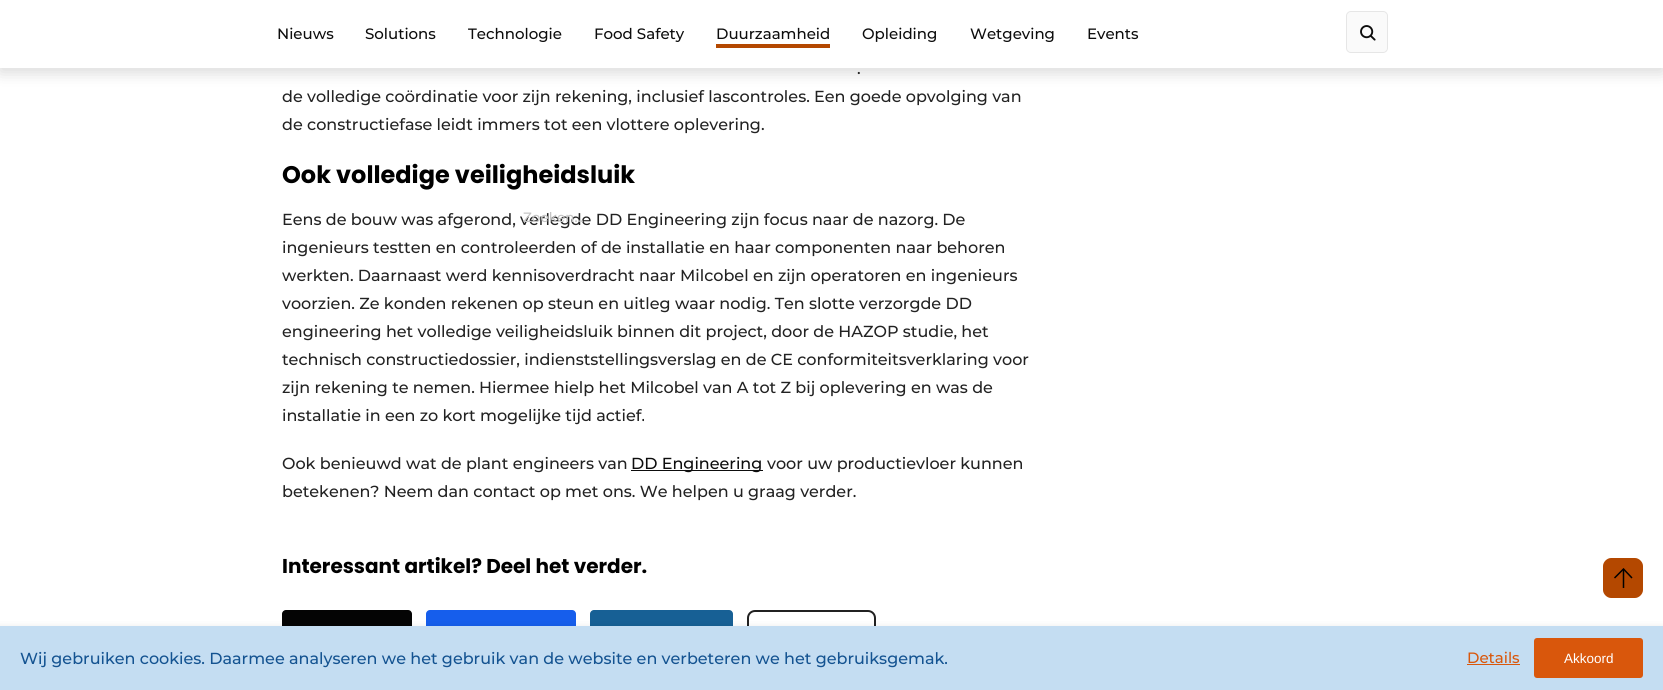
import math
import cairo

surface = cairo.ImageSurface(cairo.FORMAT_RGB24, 1663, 690)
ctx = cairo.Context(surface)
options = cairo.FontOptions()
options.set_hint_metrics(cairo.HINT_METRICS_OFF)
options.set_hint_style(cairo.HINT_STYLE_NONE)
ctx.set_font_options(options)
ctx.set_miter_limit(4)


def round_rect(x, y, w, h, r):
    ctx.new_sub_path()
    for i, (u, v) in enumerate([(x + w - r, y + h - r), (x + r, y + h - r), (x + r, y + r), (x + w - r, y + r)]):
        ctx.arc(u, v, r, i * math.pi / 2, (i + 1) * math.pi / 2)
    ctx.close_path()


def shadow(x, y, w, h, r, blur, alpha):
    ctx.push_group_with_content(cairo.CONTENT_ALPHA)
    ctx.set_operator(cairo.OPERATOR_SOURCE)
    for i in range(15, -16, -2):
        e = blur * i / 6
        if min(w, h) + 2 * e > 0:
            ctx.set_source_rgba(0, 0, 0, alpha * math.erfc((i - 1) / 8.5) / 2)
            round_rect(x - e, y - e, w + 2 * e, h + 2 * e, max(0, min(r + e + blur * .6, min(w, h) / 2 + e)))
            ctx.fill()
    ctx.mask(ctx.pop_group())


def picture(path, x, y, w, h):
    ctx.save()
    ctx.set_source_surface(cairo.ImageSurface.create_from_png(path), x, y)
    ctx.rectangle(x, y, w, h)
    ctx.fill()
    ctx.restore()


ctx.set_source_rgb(1, 1, 1)
ctx.paint()
ctx.set_source_rgb(0, 0, 0)
shadow(0, 4, 1663, 68, 0, 8, 0.16)
ctx.set_source_rgb(1, 1, 1)
ctx.rectangle(0, 0, 1663, 68)
ctx.fill()
ctx.select_font_face("Montserrat Medium")
ctx.set_font_size(15)
ctx.set_source_rgb(0.051, 0.051, 0.051)
ctx.move_to(277, 39)
ctx.show_text("Nieuws")
ctx.move_to(365, 39)
ctx.show_text("Solutions")
ctx.move_to(468, 39)
ctx.show_text("Technologie")
ctx.move_to(594, 39)
ctx.show_text("Food Safety")
ctx.move_to(716, 39)
ctx.show_text("Duurzaamheid")
ctx.set_source_rgb(0.706, 0.282, 0)
ctx.rectangle(716, 44, 114, 4)
ctx.fill()
ctx.set_source_rgb(0.051, 0.051, 0.051)
ctx.move_to(862, 39)
ctx.show_text("Opleiding")
ctx.move_to(970, 39)
ctx.show_text("Wetgeving")
ctx.move_to(1087, 39)
ctx.show_text("Events")
ctx.set_source_rgb(0.98, 0.98, 0.98)
round_rect(1347, 12, 40, 40, 4)
ctx.fill()
picture("img1.png", 1360, 25, 16, 16)
round_rect(1346.5, 11.5, 41, 41, 4.5)
ctx.set_source_rgb(0.902, 0.902, 0.902)
ctx.set_line_width(1)
ctx.stroke()
ctx.set_font_size(16)
ctx.set_source_rgb(0.133, 0.133, 0.133)
ctx.move_to(857, 74)
ctx.show_text(".")
ctx.move_to(282, 102)
ctx.show_text("de volledige coördinatie voor zijn rekening, inclusief lascontroles. Een goede opvolging van")
ctx.move_to(282, 130)
ctx.show_text("de constructiefase leidt immers tot een vlottere oplevering.")
ctx.select_font_face("Poppins", cairo.FONT_SLANT_NORMAL, cairo.FONT_WEIGHT_BOLD)
ctx.set_font_size(24)
ctx.set_source_rgb(0, 0, 0)
ctx.move_to(282, 183)
ctx.show_text("Ook volledige veiligheidsluik")
ctx.select_font_face("Montserrat Medium")
ctx.set_font_size(16)
ctx.set_source_rgb(0.133, 0.133, 0.133)
ctx.move_to(282, 225)
ctx.show_text("Eens de bouw was afgerond, verlegde DD Engineering zijn focus naar de nazorg. De")
ctx.move_to(282, 253)
ctx.show_text("ingenieurs testten en controleerden of de installatie en haar componenten naar behoren")
ctx.move_to(282, 281)
ctx.show_text("werkten. Daarnaast werd kennisoverdracht naar Milcobel en zijn operatoren en ingenieurs")
ctx.move_to(282, 309)
ctx.show_text("voorzien. Ze konden rekenen op steun en uitleg waar nodig. Ten slotte verzorgde DD")
ctx.move_to(282, 337)
ctx.show_text("engineering het volledige veiligheidsluik binnen dit project, door de HAZOP studie, het")
ctx.move_to(282, 365)
ctx.show_text("technisch constructiedossier, indienststellingsverslag en de CE conformiteitsverklaring voor")
ctx.move_to(282, 393)
ctx.show_text("zijn rekening te nemen. Hiermee hielp het Milcobel van A tot Z bij oplevering en was de")
ctx.move_to(282, 421)
ctx.show_text("installatie in een zo kort mogelijke tijd actief.")
ctx.move_to(282, 469)
ctx.show_text("Ook benieuwd wat de plant engineers van")
ctx.set_source_rgb(0.051, 0.051, 0.051)
ctx.rectangle(631, 470, 132, 1)
ctx.fill()
ctx.move_to(631, 469)
ctx.show_text("DD Engineering")
ctx.set_source_rgb(0.133, 0.133, 0.133)
ctx.move_to(767, 469)
ctx.show_text("voor uw productievloer kunnen")
ctx.move_to(282, 497)
ctx.show_text("betekenen? Neem dan contact op met ons. We helpen u graag verder.")
ctx.select_font_face("Poppins", cairo.FONT_SLANT_NORMAL, cairo.FONT_WEIGHT_BOLD)
ctx.set_font_size(20)
ctx.set_source_rgb(0, 0, 0)
ctx.move_to(282, 573)
ctx.show_text("Interessant artikel? Deel het verder.")
ctx.set_source_rgb(0.016, 0.016, 0.016)
round_rect(282, 610, 130, 53, 4)
ctx.fill()
ctx.set_source_rgb(0.086, 0.369, 0.922)
round_rect(426, 610, 150, 53, 4)
ctx.fill()
ctx.set_source_rgb(0.09, 0.376, 0.584)
round_rect(590, 610, 143, 53, 4)
ctx.fill()
round_rect(748, 611, 127, 51, 7)
ctx.set_source_rgb(0.129, 0.129, 0.129)
ctx.set_line_width(2)
ctx.stroke()
ctx.select_font_face("Montserrat Medium")
ctx.set_font_size(13.5)
ctx.set_source_rgb(0.769, 0.769, 0.769)
ctx.move_to(523, 222)
ctx.show_text("Zoeken...")
ctx.set_source_rgb(0.706, 0.282, 0)
ctx.new_path()
ctx.move_to(1603, 590)
ctx.line_to(1603, 566)
ctx.curve_to(1603, 562, 1607, 558, 1611, 558)
ctx.line_to(1635, 558)
ctx.curve_to(1639, 558, 1643, 562, 1643, 566)
ctx.line_to(1643, 590)
ctx.curve_to(1643, 594, 1639, 598, 1635, 598)
ctx.line_to(1611, 598)
ctx.curve_to(1607, 598, 1603, 594, 1603, 590)
ctx.close_path()
ctx.fill()
ctx.new_path()
ctx.move_to(1623.5, 588)
ctx.line_to(1623.5, 569)
ctx.set_source_rgb(0, 0, 0)
ctx.set_line_width(1.5)
ctx.set_line_join(cairo.LINE_JOIN_ROUND)
ctx.stroke()
ctx.new_path()
ctx.move_to(1632, 578)
ctx.line_to(1623.5, 569)
ctx.line_to(1614.5, 578)
ctx.set_line_join(cairo.LINE_JOIN_MITER)
ctx.stroke()
ctx.set_source_rgb(0, 0, 0)
shadow(-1, 625, 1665, 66, 0, 3, 0.06)
ctx.set_source_rgb(0.769, 0.867, 0.949)
ctx.rectangle(0, 626, 1663, 64)
ctx.fill()
ctx.set_font_size(16)
ctx.set_source_rgb(0.082, 0.325, 0.569)
ctx.move_to(20, 664)
ctx.show_text("Wij gebruiken cookies. Daarmee analyseren we het gebruik van de website en verbeteren we het gebruiksgemak.")
ctx.set_font_size(15)
ctx.set_source_rgb(0.851, 0.341, 0.047)
ctx.move_to(1467, 663)
ctx.show_text("Details")
ctx.rectangle(1467, 664, 53, 1)
ctx.fill()
round_rect(1534, 638, 109, 40, 3)
ctx.fill()
ctx.select_font_face("Liberation Sans")
ctx.set_font_size(13.5)
ctx.set_source_rgb(1, 1, 1)
ctx.move_to(1564, 663)
ctx.show_text("Akkoord")
surface.write_to_png("page.png")
